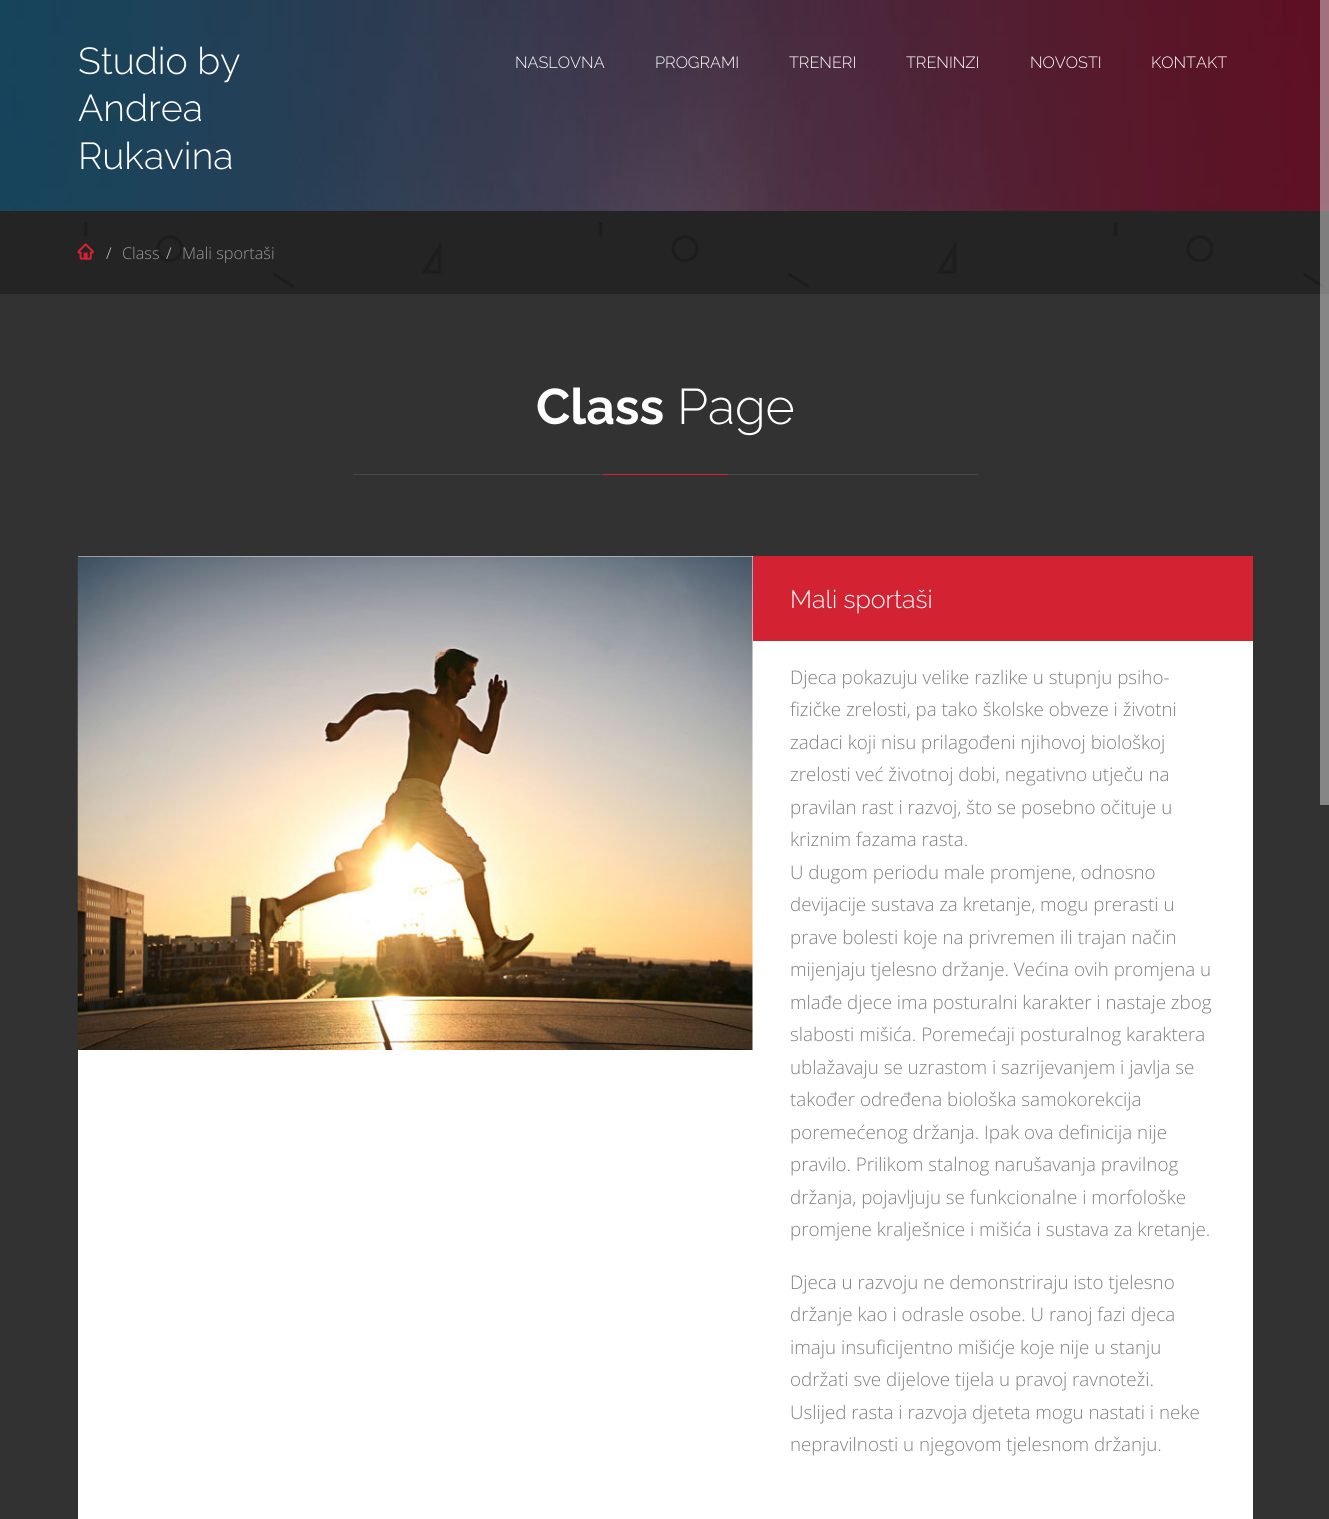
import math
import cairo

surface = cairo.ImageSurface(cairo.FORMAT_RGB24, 1329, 1519)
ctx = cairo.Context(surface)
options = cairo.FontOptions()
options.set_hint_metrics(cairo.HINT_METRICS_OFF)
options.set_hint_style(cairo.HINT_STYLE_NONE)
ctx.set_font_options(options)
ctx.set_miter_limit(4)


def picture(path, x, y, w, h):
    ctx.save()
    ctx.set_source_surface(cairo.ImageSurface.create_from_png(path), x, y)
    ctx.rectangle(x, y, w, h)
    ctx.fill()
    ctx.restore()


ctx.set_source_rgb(1, 1, 1)
ctx.paint()
picture("img1.png", 0, 0, 1329, 211)
ctx.select_font_face("Raleway Light")
ctx.set_font_size(37.5)
ctx.set_source_rgb(1, 1, 1)
ctx.move_to(78, 74)
ctx.show_text("Studio by")
ctx.move_to(78, 121)
ctx.show_text("Andrea")
ctx.move_to(78, 169)
ctx.show_text("Rukavina")
ctx.set_font_size(16.25)
ctx.move_to(515, 68)
ctx.show_text("NASLOVNA")
ctx.move_to(655, 68)
ctx.show_text("PROGRAMI")
ctx.move_to(789, 68)
ctx.show_text("TRENERI")
ctx.move_to(906, 68)
ctx.show_text("TRENINZI")
ctx.move_to(1030, 68)
ctx.show_text("NOVOSTI")
ctx.move_to(1151, 68)
ctx.show_text("KONTAKT")
ctx.set_source_rgb(0.141, 0.141, 0.141)
ctx.rectangle(0, 211, 1329, 83)
ctx.fill()
picture("img2.png", 84, 222, 1240, 66)
ctx.set_source_rgb(0.196, 0.196, 0.196)
ctx.rectangle(0, 294, 1329, 1225)
ctx.fill()
ctx.set_source_rgba(0.945, 0.945, 0.945, 0.44)
ctx.rectangle(1320, 0, 9, 805)
ctx.fill()
picture("img3.png", 77, 243, 17, 17)
ctx.select_font_face("Open Sans Light")
ctx.set_source_rgb(0.8, 0.8, 0.8)
ctx.move_to(106, 259)
ctx.show_text("/")
ctx.set_source_rgb(0.6, 0.6, 0.6)
ctx.move_to(122, 259)
ctx.show_text("Class")
ctx.set_source_rgb(0.8, 0.8, 0.8)
ctx.move_to(166, 259)
ctx.show_text("/")
ctx.set_source_rgb(0.6, 0.6, 0.6)
ctx.move_to(182, 259)
ctx.show_text("Mali sportaši")
ctx.select_font_face("Raleway", cairo.FONT_SLANT_NORMAL, cairo.FONT_WEIGHT_BOLD)
ctx.set_font_size(50)
ctx.set_source_rgb(1, 1, 1)
ctx.move_to(536, 424)
ctx.show_text("Class")
ctx.select_font_face("Raleway Light")
ctx.move_to(677, 424)
ctx.show_text("Page")
ctx.set_source_rgb(0.278, 0.278, 0.278)
ctx.rectangle(353, 474, 625, 1)
ctx.fill()
ctx.set_source_rgb(0.827, 0.133, 0.196)
ctx.rectangle(603, 474, 125, 1)
ctx.fill()
ctx.set_source_rgb(1, 1, 1)
ctx.rectangle(78, 556, 1175, 963)
ctx.fill()
picture("img4.png", 77, 556, 676, 494)
ctx.set_source_rgb(0.827, 0.133, 0.196)
ctx.rectangle(753, 556, 500, 85)
ctx.fill()
ctx.set_font_size(25)
ctx.set_source_rgb(1, 1, 1)
ctx.move_to(790, 608)
ctx.show_text("Mali sportaši")
ctx.select_font_face("Open Sans Light")
ctx.set_font_size(18.75)
ctx.set_source_rgb(0.502, 0.502, 0.502)
ctx.move_to(790, 684)
ctx.show_text("Djeca pokazuju velike razlike u stupnju psiho-")
ctx.move_to(790, 716)
ctx.show_text("fizičke zrelosti, pa tako školske obveze i životni")
ctx.move_to(790, 749)
ctx.show_text("zadaci koji nisu prilagođeni njihovoj biološkoj")
ctx.move_to(790, 781)
ctx.show_text("zrelosti već životnoj dobi, negativno utječu na")
ctx.move_to(790, 814)
ctx.show_text("pravilan rast i razvoj, što se posebno očituje u")
ctx.move_to(790, 846)
ctx.show_text("kriznim fazama rasta.")
ctx.move_to(790, 879)
ctx.show_text("U dugom periodu male promjene, odnosno")
ctx.move_to(790, 911)
ctx.show_text("devijacije sustava za kretanje, mogu prerasti u")
ctx.move_to(790, 944)
ctx.show_text("prave bolesti koje na privremen ili trajan način")
ctx.move_to(790, 976)
ctx.show_text("mijenjaju tjelesno držanje. Većina ovih promjena u")
ctx.move_to(790, 1009)
ctx.show_text("mlađe djece ima posturalni karakter i nastaje zbog")
ctx.move_to(790, 1041)
ctx.show_text("slabosti mišića. Poremećaji posturalnog karaktera")
ctx.move_to(790, 1074)
ctx.show_text("ublažavaju se uzrastom i sazrijevanjem i javlja se")
ctx.move_to(790, 1106)
ctx.show_text("također određena biološka samokorekcija")
ctx.move_to(790, 1139)
ctx.show_text("poremećenog držanja. Ipak ova definicija nije")
ctx.move_to(790, 1171)
ctx.show_text("pravilo. Prilikom stalnog narušavanja pravilnog")
ctx.move_to(790, 1204)
ctx.show_text("držanja, pojavljuju se funkcionalne i morfološke")
ctx.move_to(790, 1236)
ctx.show_text("promjene kralješnice i mišića i sustava za kretanje.")
ctx.move_to(790, 1289)
ctx.show_text("Djeca u razvoju ne demonstriraju isto tjelesno")
ctx.move_to(790, 1321)
ctx.show_text("držanje kao i odrasle osobe. U ranoj fazi djeca")
ctx.move_to(790, 1354)
ctx.show_text("imaju insuficijentno mišićje koje nije u stanju")
ctx.move_to(790, 1386)
ctx.show_text("održati sve dijelove tijela u pravoj ravnoteži.")
ctx.move_to(790, 1419)
ctx.show_text("Uslijed rasta i razvoja djeteta mogu nastati i neke")
ctx.move_to(790, 1451)
ctx.show_text("nepravilnosti u njegovom tjelesnom držanju.")
surface.write_to_png("page.png")
